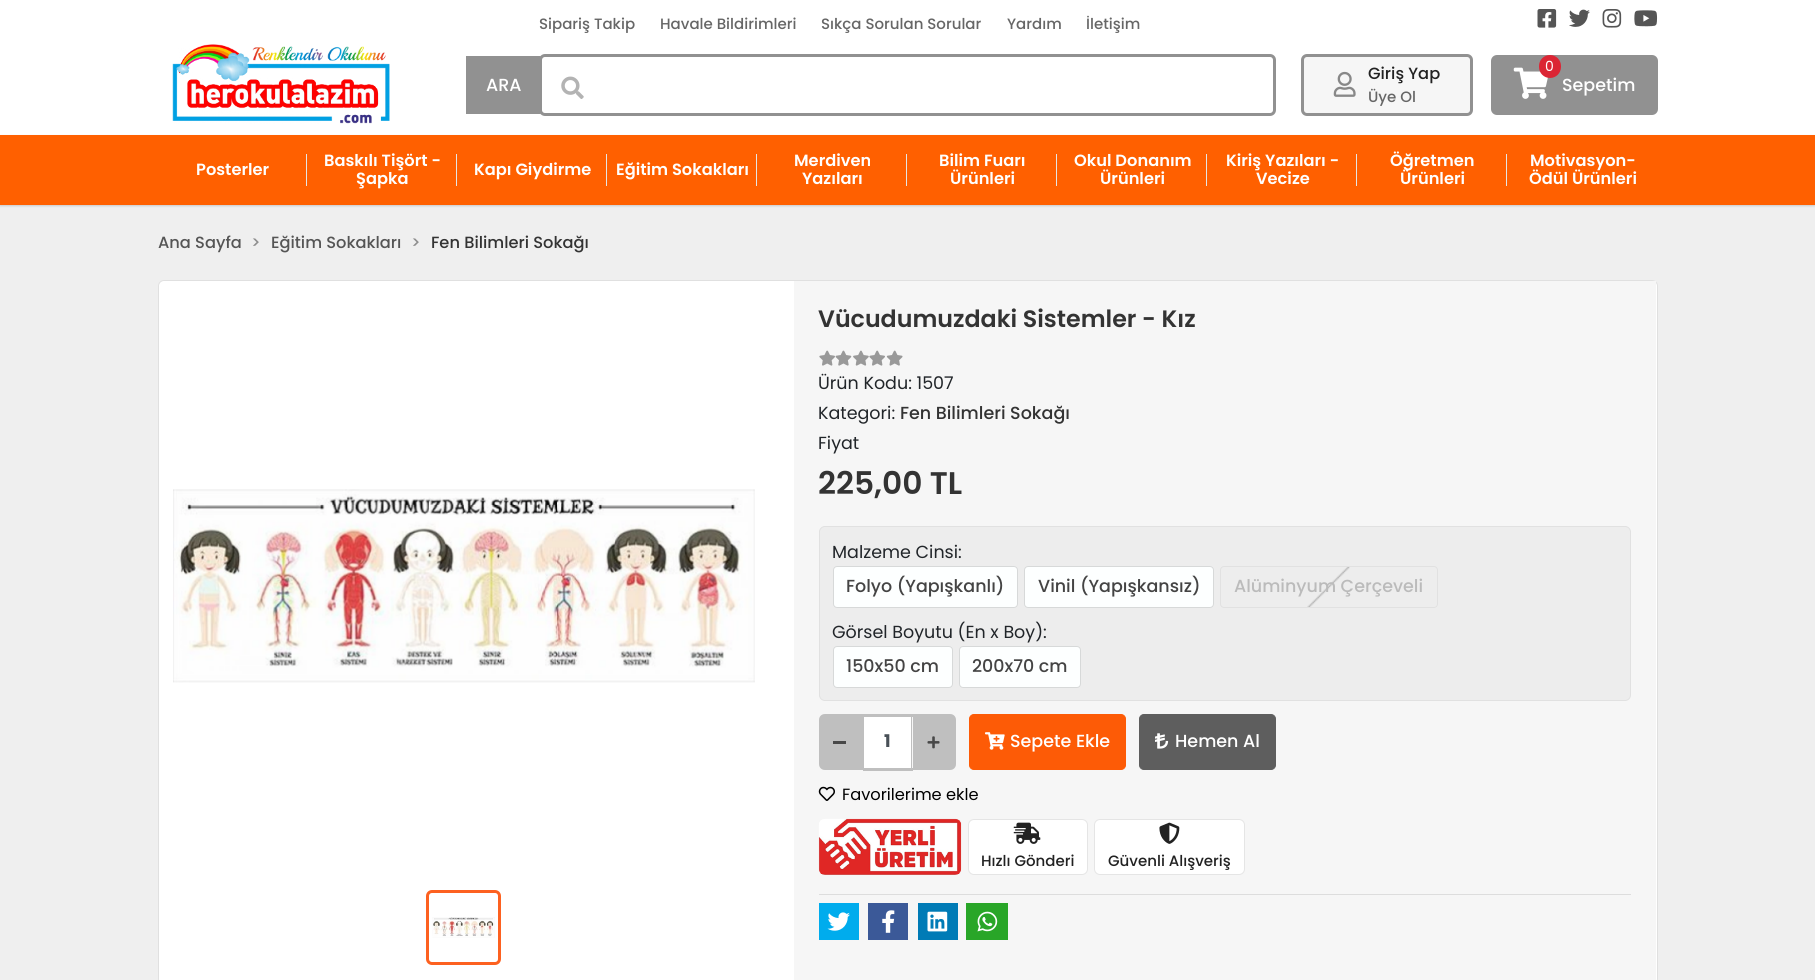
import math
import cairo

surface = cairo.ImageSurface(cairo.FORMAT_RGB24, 1815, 980)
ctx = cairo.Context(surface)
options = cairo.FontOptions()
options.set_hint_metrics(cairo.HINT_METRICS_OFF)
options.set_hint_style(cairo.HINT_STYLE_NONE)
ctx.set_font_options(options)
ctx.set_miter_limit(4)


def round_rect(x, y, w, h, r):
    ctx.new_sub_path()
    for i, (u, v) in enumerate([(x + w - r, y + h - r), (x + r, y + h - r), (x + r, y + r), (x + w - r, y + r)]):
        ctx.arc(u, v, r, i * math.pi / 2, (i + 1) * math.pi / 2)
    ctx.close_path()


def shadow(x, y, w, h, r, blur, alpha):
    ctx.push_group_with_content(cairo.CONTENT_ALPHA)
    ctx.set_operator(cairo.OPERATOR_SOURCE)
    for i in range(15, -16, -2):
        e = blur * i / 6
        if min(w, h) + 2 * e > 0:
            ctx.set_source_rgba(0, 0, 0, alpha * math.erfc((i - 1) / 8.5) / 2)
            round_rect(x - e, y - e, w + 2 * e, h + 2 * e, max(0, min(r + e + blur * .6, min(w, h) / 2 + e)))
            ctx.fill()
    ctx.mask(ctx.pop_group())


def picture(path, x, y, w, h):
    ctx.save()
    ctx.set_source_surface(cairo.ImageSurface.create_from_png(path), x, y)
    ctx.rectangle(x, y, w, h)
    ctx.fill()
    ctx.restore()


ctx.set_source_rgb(0.937, 0.937, 0.937)
ctx.paint()
ctx.set_source_rgb(1, 1, 1)
ctx.rectangle(0, 0, 1815, 135)
ctx.fill()
ctx.select_font_face("Poppins Medium")
ctx.set_font_size(15)
ctx.set_source_rgb(0.4, 0.4, 0.4)
ctx.move_to(539, 29)
ctx.show_text("Sipariş Takip")
ctx.move_to(660, 29)
ctx.show_text("Havale Bildirimleri")
ctx.move_to(821, 29)
ctx.show_text("Sıkça Sorulan Sorular")
ctx.move_to(1007, 29)
ctx.show_text("Yardım")
ctx.move_to(1086, 29)
ctx.show_text("İletişim")
picture("img1.png", 1537, 9, 20, 19)
picture("img2.png", 1569, 9, 21, 18)
picture("img3.png", 1602, 9, 20, 19)
picture("img4.png", 1634, 10, 24, 17)
picture("img5.png", 172, 44, 218, 80)
round_rect(540.5, 55.5, 734, 59, 4.5)
ctx.set_source_rgb(0.569, 0.569, 0.569)
ctx.set_line_width(3)
ctx.stroke()
ctx.new_path()
ctx.move_to(466, 56)
ctx.line_to(540, 56)
ctx.curve_to(540.5, 56, 541, 56.5, 541, 57)
ctx.line_to(541, 113)
ctx.curve_to(541, 113.5, 540.5, 114, 540, 114)
ctx.line_to(466, 114)
ctx.close_path()
ctx.fill()
ctx.set_font_size(17.5)
ctx.set_source_rgb(1, 1, 1)
ctx.move_to(486, 91)
ctx.show_text("ARA")
picture("img6.png", 561, 76, 23, 23)
ctx.set_source_rgb(0.961, 0.961, 0.961)
round_rect(1302.5, 55.5, 169, 59, 4.5)
ctx.fill_preserve()
ctx.set_source_rgb(0.569, 0.569, 0.569)
ctx.stroke()
picture("img7.png", 1333, 71, 23, 26)
ctx.set_font_size(16.25)
ctx.set_source_rgb(0.133, 0.133, 0.133)
ctx.move_to(1368, 79)
ctx.show_text("Giriş Yap")
ctx.set_font_size(15)
ctx.set_source_rgb(0.4, 0.4, 0.4)
ctx.move_to(1368, 102)
ctx.show_text("Üye Ol")
ctx.set_source_rgb(0.569, 0.569, 0.569)
round_rect(1491, 55, 167, 60, 6)
ctx.fill()
picture("img8.png", 1513, 67, 35, 32)
ctx.set_source_rgb(0.859, 0.145, 0.204)
round_rect(1539, 55, 22, 23, 11)
ctx.fill()
ctx.select_font_face("Poppins")
ctx.set_font_size(14)
ctx.set_source_rgb(1, 1, 1)
ctx.move_to(1545, 71)
ctx.show_text("0")
ctx.select_font_face("Poppins Medium")
ctx.set_font_size(17.5)
ctx.move_to(1562, 91)
ctx.show_text("Sepetim")
ctx.set_source_rgb(0, 0, 0)
shadow(0, 136, 1815, 70, 0, 1, 0.16)
ctx.set_source_rgb(1, 0.376, 0)
ctx.rectangle(0, 135, 1815, 70)
ctx.fill()
ctx.select_font_face("Poppins SemiBold")
ctx.set_font_size(16.25)
ctx.set_source_rgb(1, 1, 1)
ctx.move_to(196, 175)
ctx.show_text("Posterler")
ctx.set_source_rgb(0.898, 0.898, 0.898)
ctx.rectangle(306, 154, 1, 32)
ctx.fill()
ctx.set_source_rgb(1, 1, 1)
ctx.move_to(324, 166)
ctx.show_text("Baskılı Tişört -")
ctx.set_source_rgb(0.898, 0.898, 0.898)
ctx.rectangle(456, 154, 1, 32)
ctx.fill()
ctx.set_source_rgb(1, 1, 1)
ctx.move_to(356, 184)
ctx.show_text("Şapka")
ctx.move_to(474, 175)
ctx.show_text("Kapı Giydirme")
ctx.set_source_rgb(0.898, 0.898, 0.898)
ctx.rectangle(606, 154, 1, 32)
ctx.fill()
ctx.set_source_rgb(1, 1, 1)
ctx.move_to(616, 175)
ctx.show_text("Eğitim Sokakları")
ctx.set_source_rgb(0.898, 0.898, 0.898)
ctx.rectangle(756, 154, 1, 32)
ctx.fill()
ctx.set_source_rgb(1, 1, 1)
ctx.move_to(794, 166)
ctx.show_text("Merdiven")
ctx.set_source_rgb(0.898, 0.898, 0.898)
ctx.rectangle(906, 154, 1, 32)
ctx.fill()
ctx.set_source_rgb(1, 1, 1)
ctx.move_to(802, 184)
ctx.show_text("Yazıları")
ctx.move_to(939, 166)
ctx.show_text("Bilim Fuarı")
ctx.set_source_rgb(0.898, 0.898, 0.898)
ctx.rectangle(1056, 154, 1, 32)
ctx.fill()
ctx.set_source_rgb(1, 1, 1)
ctx.move_to(950, 184)
ctx.show_text("Ürünleri")
ctx.move_to(1074, 166)
ctx.show_text("Okul Donanım")
ctx.set_source_rgb(0.898, 0.898, 0.898)
ctx.rectangle(1206, 154, 1, 32)
ctx.fill()
ctx.set_source_rgb(1, 1, 1)
ctx.move_to(1100, 184)
ctx.show_text("Ürünleri")
ctx.move_to(1226, 166)
ctx.show_text("Kiriş Yazıları -")
ctx.set_source_rgb(0.898, 0.898, 0.898)
ctx.rectangle(1356, 154, 1, 32)
ctx.fill()
ctx.set_source_rgb(1, 1, 1)
ctx.move_to(1256, 184)
ctx.show_text("Vecize")
ctx.move_to(1390, 166)
ctx.show_text("Öğretmen")
ctx.set_source_rgb(0.898, 0.898, 0.898)
ctx.rectangle(1506, 154, 1, 32)
ctx.fill()
ctx.set_source_rgb(1, 1, 1)
ctx.move_to(1400, 184)
ctx.show_text("Ürünleri")
ctx.move_to(1530, 166)
ctx.show_text("Motivasyon-")
ctx.move_to(1529, 184)
ctx.show_text("Ödül Ürünleri")
ctx.select_font_face("Poppins Medium")
ctx.set_source_rgb(0.333, 0.333, 0.333)
ctx.move_to(158, 248)
ctx.show_text("Ana Sayfa")
ctx.set_source_rgb(0.557, 0.557, 0.557)
ctx.move_to(251, 248)
ctx.show_text(">")
ctx.set_source_rgb(0.333, 0.333, 0.333)
ctx.move_to(271, 248)
ctx.show_text("Eğitim Sokakları")
ctx.set_source_rgb(0.557, 0.557, 0.557)
ctx.move_to(411, 248)
ctx.show_text(">")
ctx.set_source_rgb(0.2, 0.2, 0.2)
ctx.move_to(431, 248)
ctx.show_text("Fen Bilimleri Sokağı")
ctx.set_source_rgb(1, 1, 1)
round_rect(158.5, 280.5, 1499, 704, 5.5)
ctx.fill_preserve()
ctx.set_source_rgb(0.878, 0.878, 0.878)
ctx.set_line_width(1)
ctx.stroke()
picture("img9.png", 173, 489, 582, 194)
round_rect(427.5, 891.5, 72, 72, 4.5)
ctx.set_source_rgb(0.992, 0.38, 0.125)
ctx.set_line_width(3)
ctx.stroke()
picture("img10.png", 432, 917, 63, 21)
ctx.set_source_rgb(0.961, 0.961, 0.961)
ctx.rectangle(794, 281, 862, 699)
ctx.fill()
ctx.select_font_face("Poppins SemiBold")
ctx.set_font_size(23.75)
ctx.set_source_rgb(0.2, 0.2, 0.2)
ctx.move_to(818, 327)
ctx.show_text("Vücudumuzdaki Sistemler - Kız")
picture("img11.png", 819, 350, 16, 16)
picture("img12.png", 835, 350, 17, 16)
picture("img13.png", 853, 350, 16, 16)
picture("img11.png", 869, 350, 16, 16)
picture("img14.png", 886, 350, 17, 16)
ctx.select_font_face("Poppins")
ctx.set_font_size(17.5)
ctx.set_source_rgb(0.129, 0.145, 0.161)
ctx.move_to(818, 389)
ctx.show_text("Ürün Kodu: 1507")
ctx.move_to(818, 419)
ctx.show_text("Kategori:")
ctx.select_font_face("Poppins Medium")
ctx.set_source_rgb(0.2, 0.2, 0.2)
ctx.move_to(900, 419)
ctx.show_text("Fen Bilimleri Sokağı")
ctx.select_font_face("Poppins")
ctx.set_source_rgb(0.129, 0.145, 0.161)
ctx.move_to(818, 449)
ctx.show_text("Fiyat")
ctx.select_font_face("Poppins SemiBold")
ctx.set_font_size(31.25)
ctx.set_source_rgb(0.2, 0.2, 0.2)
ctx.move_to(818, 494)
ctx.show_text("225,00 TL")
ctx.set_source_rgb(0.929, 0.929, 0.929)
round_rect(819.5, 526.5, 811, 174, 5.5)
ctx.fill_preserve()
ctx.set_source_rgb(0.882, 0.882, 0.882)
ctx.set_line_width(1)
ctx.stroke()
ctx.select_font_face("Poppins")
ctx.set_font_size(17.5)
ctx.set_source_rgb(0.129, 0.145, 0.161)
ctx.move_to(832, 558)
ctx.show_text("Malzeme Cinsi:")
ctx.set_source_rgb(0.992, 1, 1)
round_rect(833, 566, 185, 42, 4)
ctx.fill()
round_rect(833.5, 566.5, 184, 41, 3.5)
ctx.set_source_rgba(0, 0, 0, 0.15)
ctx.stroke()
ctx.select_font_face("Poppins Medium")
ctx.set_source_rgb(0.267, 0.267, 0.267)
ctx.move_to(846, 592)
ctx.show_text("Folyo (Yapışkanlı)")
ctx.set_source_rgb(0.992, 1, 1)
round_rect(1024, 566, 190, 42, 4)
ctx.fill()
round_rect(1024.5, 566.5, 189, 41, 3.5)
ctx.set_source_rgba(0, 0, 0, 0.15)
ctx.stroke()
ctx.set_source_rgb(0.267, 0.267, 0.267)
ctx.move_to(1038, 592)
ctx.show_text("Vinil (Yapışkansız)")
picture("img15.png", 1307, 567, 43, 40)
round_rect(1220.5, 566.5, 217, 41, 3.5)
ctx.set_source_rgb(0.882, 0.882, 0.882)
ctx.stroke()
ctx.set_source_rgb(0.733, 0.733, 0.733)
ctx.move_to(1234, 592)
ctx.show_text("Alüminyum Çerçeveli")
ctx.select_font_face("Poppins")
ctx.set_source_rgb(0.129, 0.145, 0.161)
ctx.move_to(832, 638)
ctx.show_text("Görsel Boyutu (En x Boy):")
ctx.set_source_rgb(0.992, 1, 1)
round_rect(833, 646, 120, 42, 4)
ctx.fill()
round_rect(833.5, 646.5, 119, 41, 3.5)
ctx.set_source_rgba(0, 0, 0, 0.15)
ctx.stroke()
ctx.select_font_face("Poppins Medium")
ctx.set_source_rgb(0.267, 0.267, 0.267)
ctx.move_to(846, 672)
ctx.show_text("150x50 cm")
ctx.set_source_rgb(0.992, 1, 1)
round_rect(959, 646, 122, 42, 4)
ctx.fill()
round_rect(959.5, 646.5, 121, 41, 3.5)
ctx.set_source_rgba(0, 0, 0, 0.15)
ctx.stroke()
ctx.set_source_rgb(0.267, 0.267, 0.267)
ctx.move_to(972, 672)
ctx.show_text("200x70 cm")
ctx.set_source_rgb(0.749, 0.749, 0.749)
ctx.new_path()
ctx.move_to(825, 714)
ctx.line_to(863, 714)
ctx.line_to(863, 770)
ctx.line_to(825, 770)
ctx.curve_to(821.5, 770, 819, 767.5, 819, 764)
ctx.line_to(819, 720)
ctx.curve_to(819, 716.5, 821.5, 714, 825, 714)
ctx.close_path()
ctx.fill()
ctx.set_source_rgb(0.282, 0.282, 0.282)
ctx.rectangle(833, 741, 13, 3)
ctx.fill()
ctx.set_source_rgb(1, 1, 1)
ctx.rectangle(864, 717, 47, 51)
ctx.fill()
ctx.set_source_rgb(0.749, 0.749, 0.749)
ctx.rectangle(863, 714, 50, 3)
ctx.fill()
ctx.rectangle(911, 714, 1, 56)
ctx.fill()
ctx.rectangle(863, 768, 50, 3)
ctx.fill()
ctx.rectangle(863, 714, 1, 56)
ctx.fill()
ctx.select_font_face("Poppins", cairo.FONT_SLANT_NORMAL, cairo.FONT_WEIGHT_BOLD)
ctx.set_source_rgb(0.286, 0.314, 0.341)
ctx.move_to(884, 747)
ctx.show_text("1")
ctx.set_source_rgb(0.749, 0.749, 0.749)
ctx.new_path()
ctx.move_to(913, 714)
ctx.line_to(950, 714)
ctx.curve_to(953.5, 714, 956, 716.5, 956, 720)
ctx.line_to(956, 764)
ctx.curve_to(956, 767.5, 953.5, 770, 950, 770)
ctx.line_to(913, 770)
ctx.close_path()
ctx.fill()
picture("img16.png", 927, 736, 13, 13)
ctx.set_source_rgb(0.992, 0.357, 0.024)
round_rect(969.5, 714.5, 156, 55, 4.5)
ctx.fill_preserve()
ctx.stroke()
picture("img17.png", 985, 732, 20, 18)
ctx.select_font_face("Poppins Medium")
ctx.set_source_rgb(1, 1, 1)
ctx.move_to(1010, 747)
ctx.show_text("Sepete Ekle")
ctx.set_source_rgb(0.369, 0.369, 0.369)
round_rect(1139.5, 714.5, 136, 55, 4.5)
ctx.fill_preserve()
ctx.stroke()
picture("img18.png", 1155, 733, 14, 16)
ctx.set_source_rgb(1, 1, 1)
ctx.move_to(1175, 747)
ctx.show_text("Hemen Al")
picture("img19.png", 818, 786, 17, 15)
ctx.select_font_face("Poppins")
ctx.set_font_size(16.25)
ctx.set_source_rgb(0, 0, 0)
ctx.move_to(842, 800)
ctx.show_text("Favorilerime ekle")
picture("img20.png", 818, 818, 144, 57)
ctx.set_source_rgb(1, 1, 1)
round_rect(968.5, 819.5, 119, 55, 5.5)
ctx.fill_preserve()
ctx.set_source_rgb(0.898, 0.898, 0.898)
ctx.stroke()
picture("img21.png", 1013, 822, 28, 22)
ctx.select_font_face("Poppins Medium")
ctx.set_font_size(15)
ctx.set_source_rgb(0.133, 0.133, 0.133)
ctx.move_to(981, 866)
ctx.show_text("Hızlı Gönderi")
ctx.set_source_rgb(1, 1, 1)
round_rect(1094.5, 819.5, 150, 55, 5.5)
ctx.fill_preserve()
ctx.set_source_rgb(0.898, 0.898, 0.898)
ctx.stroke()
picture("img22.png", 1159, 822, 21, 22)
ctx.set_source_rgb(0.133, 0.133, 0.133)
ctx.move_to(1108, 866)
ctx.show_text("Güvenli Alışveriş")
ctx.set_source_rgb(0.867, 0.867, 0.867)
ctx.rectangle(819, 894, 812, 1)
ctx.fill()
ctx.set_source_rgb(0, 0.675, 0.929)
ctx.rectangle(819, 903, 40, 37)
ctx.fill()
picture("img23.png", 827, 912, 23, 19)
ctx.set_source_rgb(0.231, 0.349, 0.596)
ctx.rectangle(868, 903, 40, 37)
ctx.fill()
picture("img24.png", 882, 910, 13, 23)
ctx.set_source_rgb(0, 0.482, 0.714)
ctx.rectangle(918, 903, 40, 37)
ctx.fill()
picture("img25.png", 927, 911, 21, 21)
ctx.set_source_rgb(0.161, 0.651, 0.157)
ctx.rectangle(966, 903, 42, 37)
ctx.fill()
picture("img26.png", 977, 911, 21, 21)
surface.write_to_png("page.png")
